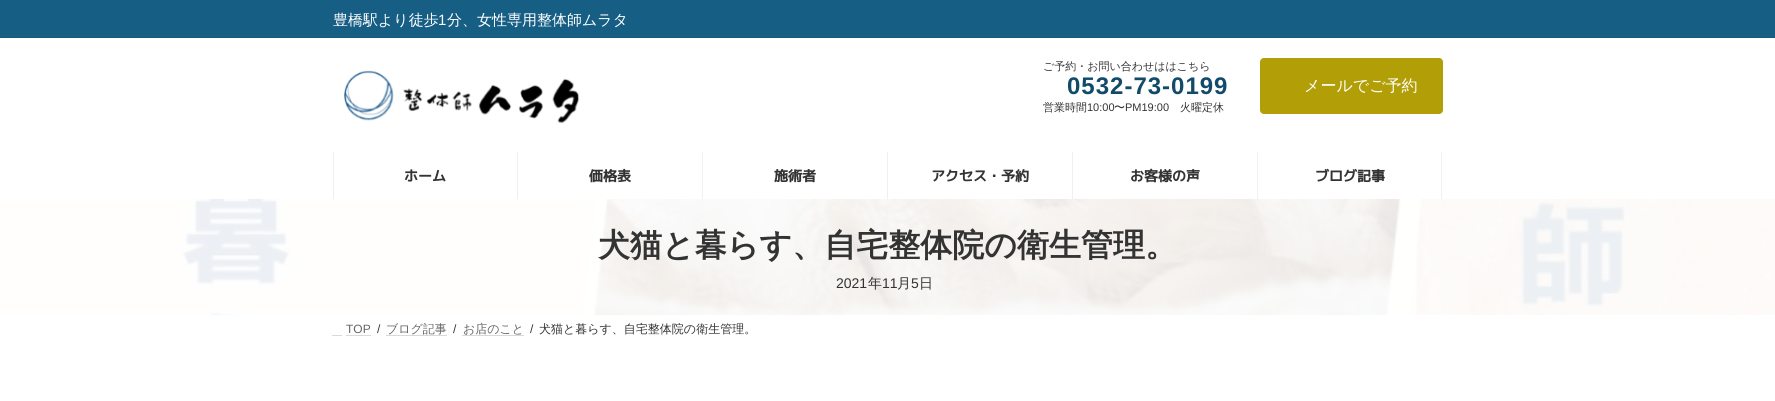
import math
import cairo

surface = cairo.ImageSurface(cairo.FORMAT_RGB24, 1775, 401)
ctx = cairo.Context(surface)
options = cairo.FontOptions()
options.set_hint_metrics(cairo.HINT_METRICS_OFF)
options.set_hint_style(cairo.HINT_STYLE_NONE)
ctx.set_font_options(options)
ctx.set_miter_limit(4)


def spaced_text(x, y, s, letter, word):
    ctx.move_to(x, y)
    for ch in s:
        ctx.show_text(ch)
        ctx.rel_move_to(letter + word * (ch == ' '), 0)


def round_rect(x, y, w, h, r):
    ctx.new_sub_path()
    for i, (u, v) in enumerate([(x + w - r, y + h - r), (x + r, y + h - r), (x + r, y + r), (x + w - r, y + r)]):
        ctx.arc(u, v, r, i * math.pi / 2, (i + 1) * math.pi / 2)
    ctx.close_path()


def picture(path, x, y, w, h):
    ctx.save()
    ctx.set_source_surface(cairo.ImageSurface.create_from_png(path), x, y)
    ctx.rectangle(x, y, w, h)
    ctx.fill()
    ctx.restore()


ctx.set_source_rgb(1, 1, 1)
ctx.paint()
ctx.set_source_rgb(0.086, 0.369, 0.514)
ctx.rectangle(0, 0, 1775, 37)
ctx.fill()
ctx.set_source_rgb(0.082, 0.353, 0.494)
ctx.rectangle(0, 37, 1775, 1)
ctx.fill()
ctx.select_font_face("WenQuanYi Zen Hei Medium")
ctx.set_font_size(15)
ctx.set_source_rgb(1, 1, 1)
ctx.move_to(333, 25)
ctx.show_text("豊橋駅より徒歩")
ctx.select_font_face("Liberation Sans")
ctx.move_to(438, 25)
ctx.show_text("1")
ctx.select_font_face("WenQuanYi Zen Hei Medium")
ctx.move_to(447, 25)
ctx.show_text("分、女性専用整体師ムラタ")
picture("img1.png", 344, 70, 236, 54)
ctx.set_font_size(11)
ctx.set_source_rgb(0.2, 0.2, 0.2)
ctx.move_to(1043, 70)
ctx.show_text("ご予約・お問い合わせははこちら")
ctx.select_font_face("Liberation Sans", cairo.FONT_SLANT_NORMAL, cairo.FONT_WEIGHT_BOLD)
ctx.set_font_size(24)
ctx.set_source_rgb(0.071, 0.294, 0.412)
spaced_text(1067, 94, "0532-73-0199", 1, 0)
ctx.select_font_face("WenQuanYi Zen Hei Medium")
ctx.set_font_size(11)
ctx.set_source_rgb(0.2, 0.2, 0.2)
ctx.move_to(1043, 111)
ctx.show_text("営業時間")
ctx.select_font_face("Liberation Sans")
ctx.move_to(1087, 111)
ctx.show_text("10:00")
ctx.select_font_face("WenQuanYi Zen Hei Medium")
ctx.move_to(1114, 111)
ctx.show_text("〜")
ctx.select_font_face("Liberation Sans")
ctx.move_to(1125, 111)
ctx.show_text("PM19:00")
ctx.select_font_face("WenQuanYi Zen Hei Medium")
ctx.move_to(1180, 111)
ctx.show_text("火曜定休")
ctx.set_source_rgb(0.698, 0.62, 0.024)
round_rect(1260.5, 58.5, 182, 55, 3.5)
ctx.fill_preserve()
ctx.set_line_width(1)
ctx.stroke()
ctx.set_font_size(16)
ctx.set_source_rgb(1, 1, 1)
ctx.move_to(1304, 91)
ctx.show_text("メールでご予約")
ctx.set_source_rgb(0.941, 0.941, 0.941)
ctx.rectangle(517, 152, 1, 47)
ctx.fill()
ctx.rectangle(333, 152, 1, 47)
ctx.fill()
ctx.select_font_face("M PLUS 1p", cairo.FONT_SLANT_NORMAL, cairo.FONT_WEIGHT_BOLD)
ctx.set_font_size(14)
ctx.set_source_rgb(0.2, 0.2, 0.2)
ctx.move_to(404, 181)
ctx.show_text("ホーム")
ctx.set_source_rgb(0.941, 0.941, 0.941)
ctx.rectangle(702, 152, 1, 47)
ctx.fill()
ctx.set_source_rgb(0.2, 0.2, 0.2)
ctx.move_to(589, 181)
ctx.show_text("価格表")
ctx.set_source_rgb(0.941, 0.941, 0.941)
ctx.rectangle(887, 152, 1, 47)
ctx.fill()
ctx.set_source_rgb(0.2, 0.2, 0.2)
ctx.move_to(774, 181)
ctx.show_text("施術者")
ctx.set_source_rgb(0.941, 0.941, 0.941)
ctx.rectangle(1072, 152, 1, 47)
ctx.fill()
ctx.set_source_rgb(0.2, 0.2, 0.2)
ctx.move_to(931, 181)
ctx.show_text("アクセス・予約")
ctx.set_source_rgb(0.941, 0.941, 0.941)
ctx.rectangle(1257, 152, 1, 47)
ctx.fill()
ctx.set_source_rgb(0.2, 0.2, 0.2)
ctx.move_to(1130, 181)
ctx.show_text("お客様の声")
ctx.set_source_rgb(0.941, 0.941, 0.941)
ctx.rectangle(1441, 152, 1, 47)
ctx.fill()
ctx.set_source_rgb(0.2, 0.2, 0.2)
ctx.move_to(1315, 181)
ctx.show_text("ブログ記事")
picture("img2.png", 0, 199, 1775, 116)
ctx.select_font_face("WenQuanYi Zen Hei", cairo.FONT_SLANT_NORMAL, cairo.FONT_WEIGHT_BOLD)
ctx.set_font_size(32)
ctx.move_to(598, 256)
ctx.show_text("犬猫と暮らす、自宅整体院の衛生管理。")
ctx.select_font_face("Liberation Sans")
ctx.set_font_size(14)
ctx.move_to(836, 288)
ctx.show_text("2021")
ctx.select_font_face("WenQuanYi Zen Hei Medium")
ctx.move_to(868, 288)
ctx.show_text("年")
ctx.select_font_face("Liberation Sans")
ctx.move_to(882, 288)
ctx.show_text("11")
ctx.select_font_face("WenQuanYi Zen Hei Medium")
ctx.move_to(897, 288)
ctx.show_text("月")
ctx.select_font_face("Liberation Sans")
ctx.move_to(911, 288)
ctx.show_text("5")
ctx.select_font_face("WenQuanYi Zen Hei Medium")
ctx.move_to(919, 288)
ctx.show_text("日")
ctx.select_font_face("Liberation Sans")
ctx.set_font_size(12)
ctx.set_source_rgb(0.4, 0.4, 0.4)
ctx.move_to(346, 333)
ctx.show_text("TOP")
ctx.new_path()
ctx.move_to(332.5, 335.5)
ctx.line_to(341.5, 335.5)
ctx.move_to(346.5, 335.5)
ctx.line_to(371, 335.5)
ctx.set_source_rgb(0.702, 0.702, 0.702)
ctx.set_dash([1, 1])
ctx.stroke()
ctx.set_source_rgb(0.2, 0.2, 0.2)
ctx.move_to(377, 333)
ctx.show_text("/")
ctx.select_font_face("WenQuanYi Zen Hei Medium")
ctx.set_source_rgb(0.4, 0.4, 0.4)
ctx.move_to(386, 333)
ctx.show_text("ブログ記事")
ctx.new_path()
ctx.move_to(386.5, 335.5)
ctx.line_to(447, 335.5)
ctx.set_source_rgb(0.702, 0.702, 0.702)
ctx.stroke()
ctx.select_font_face("Liberation Sans")
ctx.set_source_rgb(0.2, 0.2, 0.2)
ctx.move_to(453, 333)
ctx.show_text("/")
ctx.select_font_face("WenQuanYi Zen Hei Medium")
ctx.set_source_rgb(0.4, 0.4, 0.4)
ctx.move_to(463, 333)
ctx.show_text("お店のこと")
ctx.new_path()
ctx.move_to(462.5, 335.5)
ctx.line_to(523.5, 335.5)
ctx.set_source_rgb(0.702, 0.702, 0.702)
ctx.stroke()
ctx.select_font_face("Liberation Sans")
ctx.set_source_rgb(0.2, 0.2, 0.2)
ctx.move_to(530, 333)
ctx.show_text("/")
ctx.select_font_face("WenQuanYi Zen Hei Medium")
ctx.move_to(539, 333)
ctx.show_text("犬猫と暮らす、自宅整体院の衛生管理。")
surface.write_to_png("page.png")
